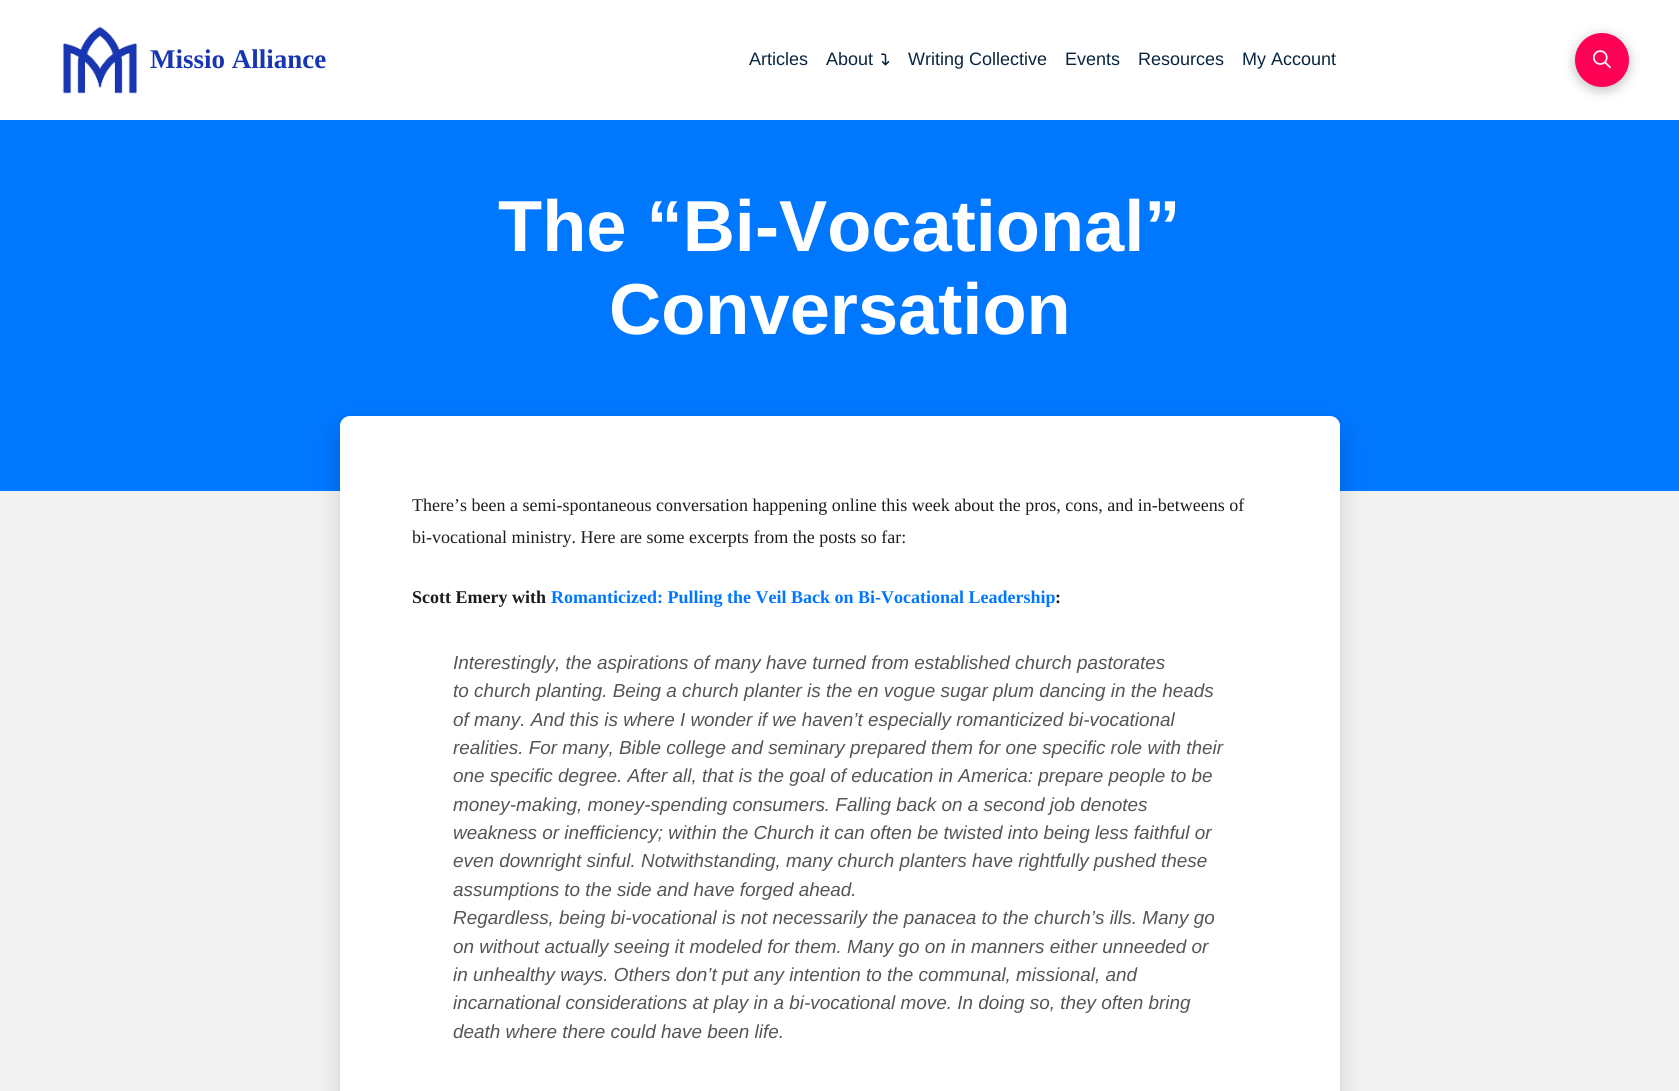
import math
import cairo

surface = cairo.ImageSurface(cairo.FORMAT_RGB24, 1679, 1091)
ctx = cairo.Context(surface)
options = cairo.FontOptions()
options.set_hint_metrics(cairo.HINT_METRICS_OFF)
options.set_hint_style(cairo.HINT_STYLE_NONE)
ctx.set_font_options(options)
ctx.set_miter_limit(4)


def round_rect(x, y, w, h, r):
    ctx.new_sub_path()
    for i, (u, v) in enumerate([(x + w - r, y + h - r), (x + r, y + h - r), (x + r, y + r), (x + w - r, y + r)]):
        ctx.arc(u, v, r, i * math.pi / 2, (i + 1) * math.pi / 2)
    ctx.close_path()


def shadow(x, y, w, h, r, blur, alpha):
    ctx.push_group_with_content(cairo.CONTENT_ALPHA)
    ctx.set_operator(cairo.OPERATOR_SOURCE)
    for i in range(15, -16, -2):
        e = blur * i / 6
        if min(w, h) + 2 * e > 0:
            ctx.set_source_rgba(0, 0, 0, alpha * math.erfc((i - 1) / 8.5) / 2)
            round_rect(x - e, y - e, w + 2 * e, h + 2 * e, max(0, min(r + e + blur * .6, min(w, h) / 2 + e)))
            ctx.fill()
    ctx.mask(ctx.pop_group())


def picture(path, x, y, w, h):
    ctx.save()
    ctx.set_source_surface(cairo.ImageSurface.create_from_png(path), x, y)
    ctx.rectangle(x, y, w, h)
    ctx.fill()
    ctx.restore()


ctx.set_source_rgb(1, 1, 1)
ctx.paint()
picture("img1.png", 62, 26, 76, 68)
ctx.select_font_face("Liberation Serif", cairo.FONT_SLANT_NORMAL, cairo.FONT_WEIGHT_BOLD)
ctx.set_font_size(27)
ctx.set_source_rgb(0.098, 0.212, 0.698)
ctx.move_to(150, 68)
ctx.show_text("Missio Alliance")
ctx.select_font_face("Liberation Sans")
ctx.set_font_size(18)
ctx.set_source_rgb(0.039, 0.145, 0.251)
ctx.move_to(749, 65)
ctx.show_text("Articles")
ctx.move_to(826, 65)
ctx.show_text("About")
picture("img2.png", 881, 53, 9, 13)
ctx.move_to(908, 65)
ctx.show_text("Writing Collective")
ctx.move_to(1065, 65)
ctx.show_text("Events")
ctx.move_to(1138, 65)
ctx.show_text("Resources")
ctx.move_to(1242, 65)
ctx.show_text("My Account")
ctx.set_source_rgb(0, 0, 0)
shadow(1575, 36, 54, 54, 27, 6, 0.25)
ctx.set_source_rgb(1, 0, 0.329)
ctx.arc(1602, 60, 27, 0, 2 * math.pi)
ctx.fill()
picture("img3.png", 1593, 50, 18, 19)
ctx.set_source_rgb(0, 0.467, 1)
ctx.rectangle(0, 120, 1679, 371)
ctx.fill()
ctx.select_font_face("Liberation Sans", cairo.FONT_SLANT_NORMAL, cairo.FONT_WEIGHT_BOLD)
ctx.set_font_size(72.25)
ctx.set_source_rgb(1, 1, 1)
ctx.move_to(498, 251)
ctx.show_text("The “Bi-Vocational”")
ctx.move_to(609, 334)
ctx.show_text("Conversation")
ctx.set_source_rgb(0.953, 0.953, 0.953)
ctx.rectangle(0, 491, 1679, 600)
ctx.fill()
ctx.set_source_rgb(0, 0, 0)
shadow(340, 428, 1000, 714, 10, 13.5, 0.15)
ctx.set_source_rgb(1, 1, 1)
round_rect(340, 416, 1000, 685, 10)
ctx.fill()
ctx.select_font_face("Liberation Serif")
ctx.set_font_size(18)
ctx.set_source_rgb(0.114, 0.114, 0.114)
ctx.move_to(412, 511)
ctx.show_text("There’s been a semi-spontaneous conversation happening online this week about the pros, cons, and in-betweens of")
ctx.move_to(412, 543)
ctx.show_text("bi-vocational ministry. Here are some excerpts from the posts so far:")
ctx.select_font_face("Liberation Serif", cairo.FONT_SLANT_NORMAL, cairo.FONT_WEIGHT_BOLD)
ctx.move_to(412, 603)
ctx.show_text("Scott Emery with")
ctx.set_source_rgb(0, 0.467, 1)
ctx.move_to(551, 603)
ctx.show_text("Romanticized: Pulling the Veil Back on Bi-Vocational Leadership")
ctx.set_source_rgb(0.114, 0.114, 0.114)
ctx.move_to(1055, 603)
ctx.show_text(":")
ctx.select_font_face("Liberation Sans", cairo.FONT_SLANT_ITALIC)
ctx.set_font_size(18.9)
ctx.set_source_rgb(0.333, 0.333, 0.333)
ctx.move_to(453, 669)
ctx.show_text("Interestingly, the aspirations of many have turned from established church pastorates")
ctx.move_to(453, 697)
ctx.show_text("to church planting. Being a church planter is the en vogue sugar plum dancing in the heads")
ctx.move_to(453, 726)
ctx.show_text("of many. And this is where I wonder if we haven’t especially romanticized bi-vocational")
ctx.move_to(453, 754)
ctx.show_text("realities. For many, Bible college and seminary prepared them for one specific role with their")
ctx.move_to(453, 782)
ctx.show_text("one specific degree. After all, that is the goal of education in America: prepare people to be")
ctx.move_to(453, 811)
ctx.show_text("money-making, money-spending consumers. Falling back on a second job denotes")
ctx.move_to(453, 839)
ctx.show_text("weakness or inefficiency; within the Church it can often be twisted into being less faithful or")
ctx.move_to(453, 867)
ctx.show_text("even downright sinful. Notwithstanding, many church planters have rightfully pushed these")
ctx.move_to(453, 896)
ctx.show_text("assumptions to the side and have forged ahead.")
ctx.move_to(453, 924)
ctx.show_text("Regardless, being bi-vocational is not necessarily the panacea to the church’s ills. Many go")
ctx.move_to(453, 953)
ctx.show_text("on without actually seeing it modeled for them. Many go on in manners either unneeded or")
ctx.move_to(453, 981)
ctx.show_text("in unhealthy ways. Others don’t put any intention to the communal, missional, and")
ctx.move_to(453, 1009)
ctx.show_text("incarnational considerations at play in a bi-vocational move. In doing so, they often bring")
ctx.move_to(453, 1038)
ctx.show_text("death where there could have been life.")
surface.write_to_png("page.png")
